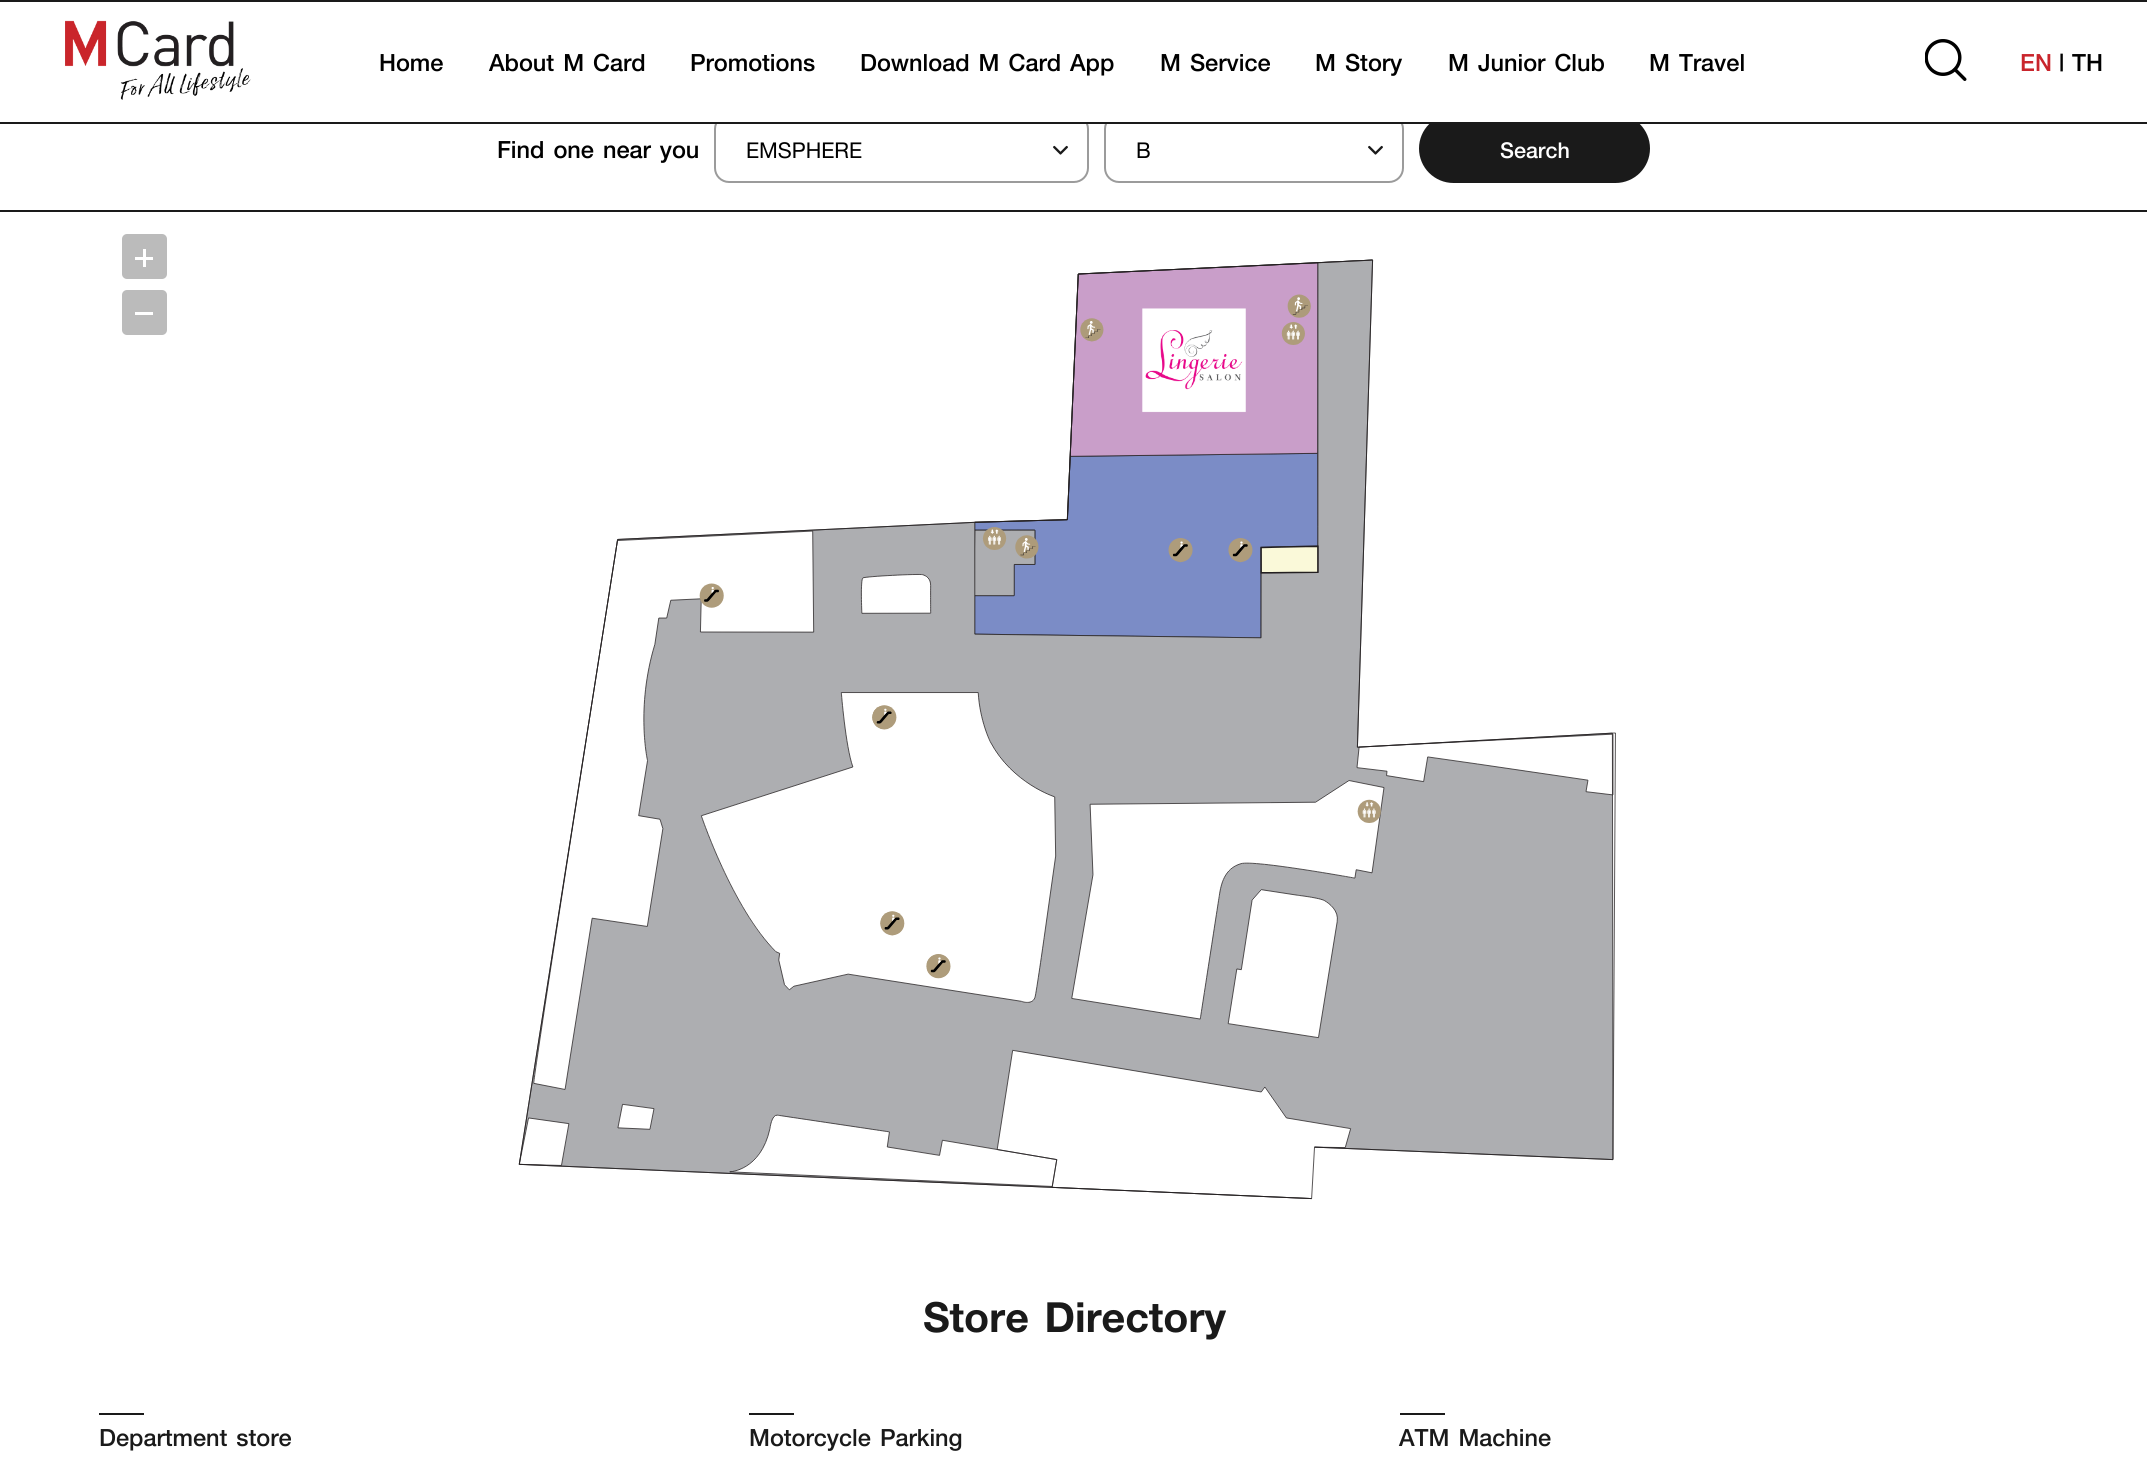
import math
import cairo

surface = cairo.ImageSurface(cairo.FORMAT_RGB24, 2147, 1479)
ctx = cairo.Context(surface)
options = cairo.FontOptions()
options.set_hint_metrics(cairo.HINT_METRICS_OFF)
options.set_hint_style(cairo.HINT_STYLE_NONE)
ctx.set_font_options(options)
ctx.set_miter_limit(4)


def round_rect(x, y, w, h, r):
    ctx.new_sub_path()
    for i, (u, v) in enumerate([(x + w - r, y + h - r), (x + r, y + h - r), (x + r, y + r), (x + w - r, y + r)]):
        ctx.arc(u, v, r, i * math.pi / 2, (i + 1) * math.pi / 2)
    ctx.close_path()


def picture(path, x, y, w, h):
    ctx.save()
    ctx.set_source_surface(cairo.ImageSurface.create_from_png(path), x, y)
    ctx.rectangle(x, y, w, h)
    ctx.fill()
    ctx.restore()


ctx.set_source_rgb(1, 1, 1)
ctx.paint()
round_rect(715, 115, 373, 67, 14)
ctx.set_source_rgb(0.608, 0.608, 0.608)
ctx.stroke()
round_rect(1105, 115, 298, 67, 14)
ctx.stroke()
ctx.set_source_rgb(0.102, 0.102, 0.102)
round_rect(1419, 114, 231, 69, 34.5)
ctx.fill()
ctx.set_source_rgb(1, 1, 1)
ctx.rectangle(715, 114, 923, 8)
ctx.fill()
ctx.set_source_rgb(0.102, 0.102, 0.102)
ctx.rectangle(0, 0, 2147, 2)
ctx.fill()
ctx.rectangle(0, 122, 2147, 2)
ctx.fill()
picture("img1.png", 65, 20, 186, 80)
ctx.select_font_face("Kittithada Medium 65 Medium")
ctx.set_font_size(36)
ctx.set_source_rgb(0, 0, 0)
ctx.move_to(379, 71)
ctx.show_text("Home")
ctx.move_to(489, 71)
ctx.show_text("About M Card")
ctx.move_to(690, 71)
ctx.show_text("Promotions")
ctx.move_to(860, 71)
ctx.show_text("Download M Card App")
ctx.move_to(1160, 71)
ctx.show_text("M Service")
ctx.move_to(1315, 71)
ctx.show_text("M Story")
ctx.move_to(1448, 71)
ctx.show_text("M Junior Club")
ctx.move_to(1649, 71)
ctx.show_text("M Travel")
picture("img2.png", 1925, 39, 42, 42)
ctx.set_source_rgb(0.788, 0.145, 0.173)
ctx.move_to(2020, 71)
ctx.show_text("EN")
ctx.set_source_rgb(0, 0, 0)
ctx.move_to(2059, 71)
ctx.show_text("|")
ctx.move_to(2072, 71)
ctx.show_text("TH")
ctx.set_source_rgb(0.102, 0.102, 0.102)
ctx.rectangle(0, 210, 2147, 2)
ctx.fill()
ctx.set_source_rgb(0, 0, 0)
ctx.move_to(497, 158)
ctx.show_text("Find one near you")
ctx.select_font_face("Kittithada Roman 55")
ctx.set_font_size(33)
ctx.move_to(746, 158)
ctx.show_text("EMSPHERE")
picture("img3.png", 1053, 145, 15, 10)
ctx.move_to(1136, 158)
ctx.show_text("B")
picture("img3.png", 1368, 145, 15, 10)
ctx.select_font_face("Kittithada Medium 65 Medium")
ctx.set_source_rgb(1, 1, 1)
ctx.move_to(1500, 158)
ctx.show_text("Search")
ctx.set_source_rgb(0.733, 0.733, 0.733)
round_rect(122, 234, 45, 45, 5)
ctx.fill()
ctx.set_source_rgb(1, 1, 1)
ctx.rectangle(135, 257, 18, 3)
ctx.fill()
ctx.rectangle(143, 249, 3, 18)
ctx.fill()
ctx.set_source_rgb(0.733, 0.733, 0.733)
round_rect(122, 290, 45, 45, 5)
ctx.fill()
ctx.set_source_rgb(1, 1, 1)
ctx.rectangle(135, 312, 18, 3)
ctx.fill()
picture("img4.png", 518, 259, 1098, 941)
ctx.select_font_face("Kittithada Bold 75", cairo.FONT_SLANT_NORMAL, cairo.FONT_WEIGHT_BOLD)
ctx.set_font_size(63)
ctx.set_source_rgb(0.102, 0.102, 0.102)
ctx.move_to(923, 1332)
ctx.show_text("Store Directory")
ctx.rectangle(99, 1413, 45, 2)
ctx.fill()
ctx.select_font_face("Kittithada Medium 65 Medium")
ctx.set_font_size(36)
ctx.move_to(99, 1446)
ctx.show_text("Department store")
ctx.rectangle(749, 1413, 45, 2)
ctx.fill()
ctx.move_to(749, 1446)
ctx.show_text("Motorcycle Parking")
ctx.rectangle(1400, 1413, 45, 2)
ctx.fill()
ctx.move_to(1399, 1446)
ctx.show_text("ATM Machine")
surface.write_to_png("page.png")
